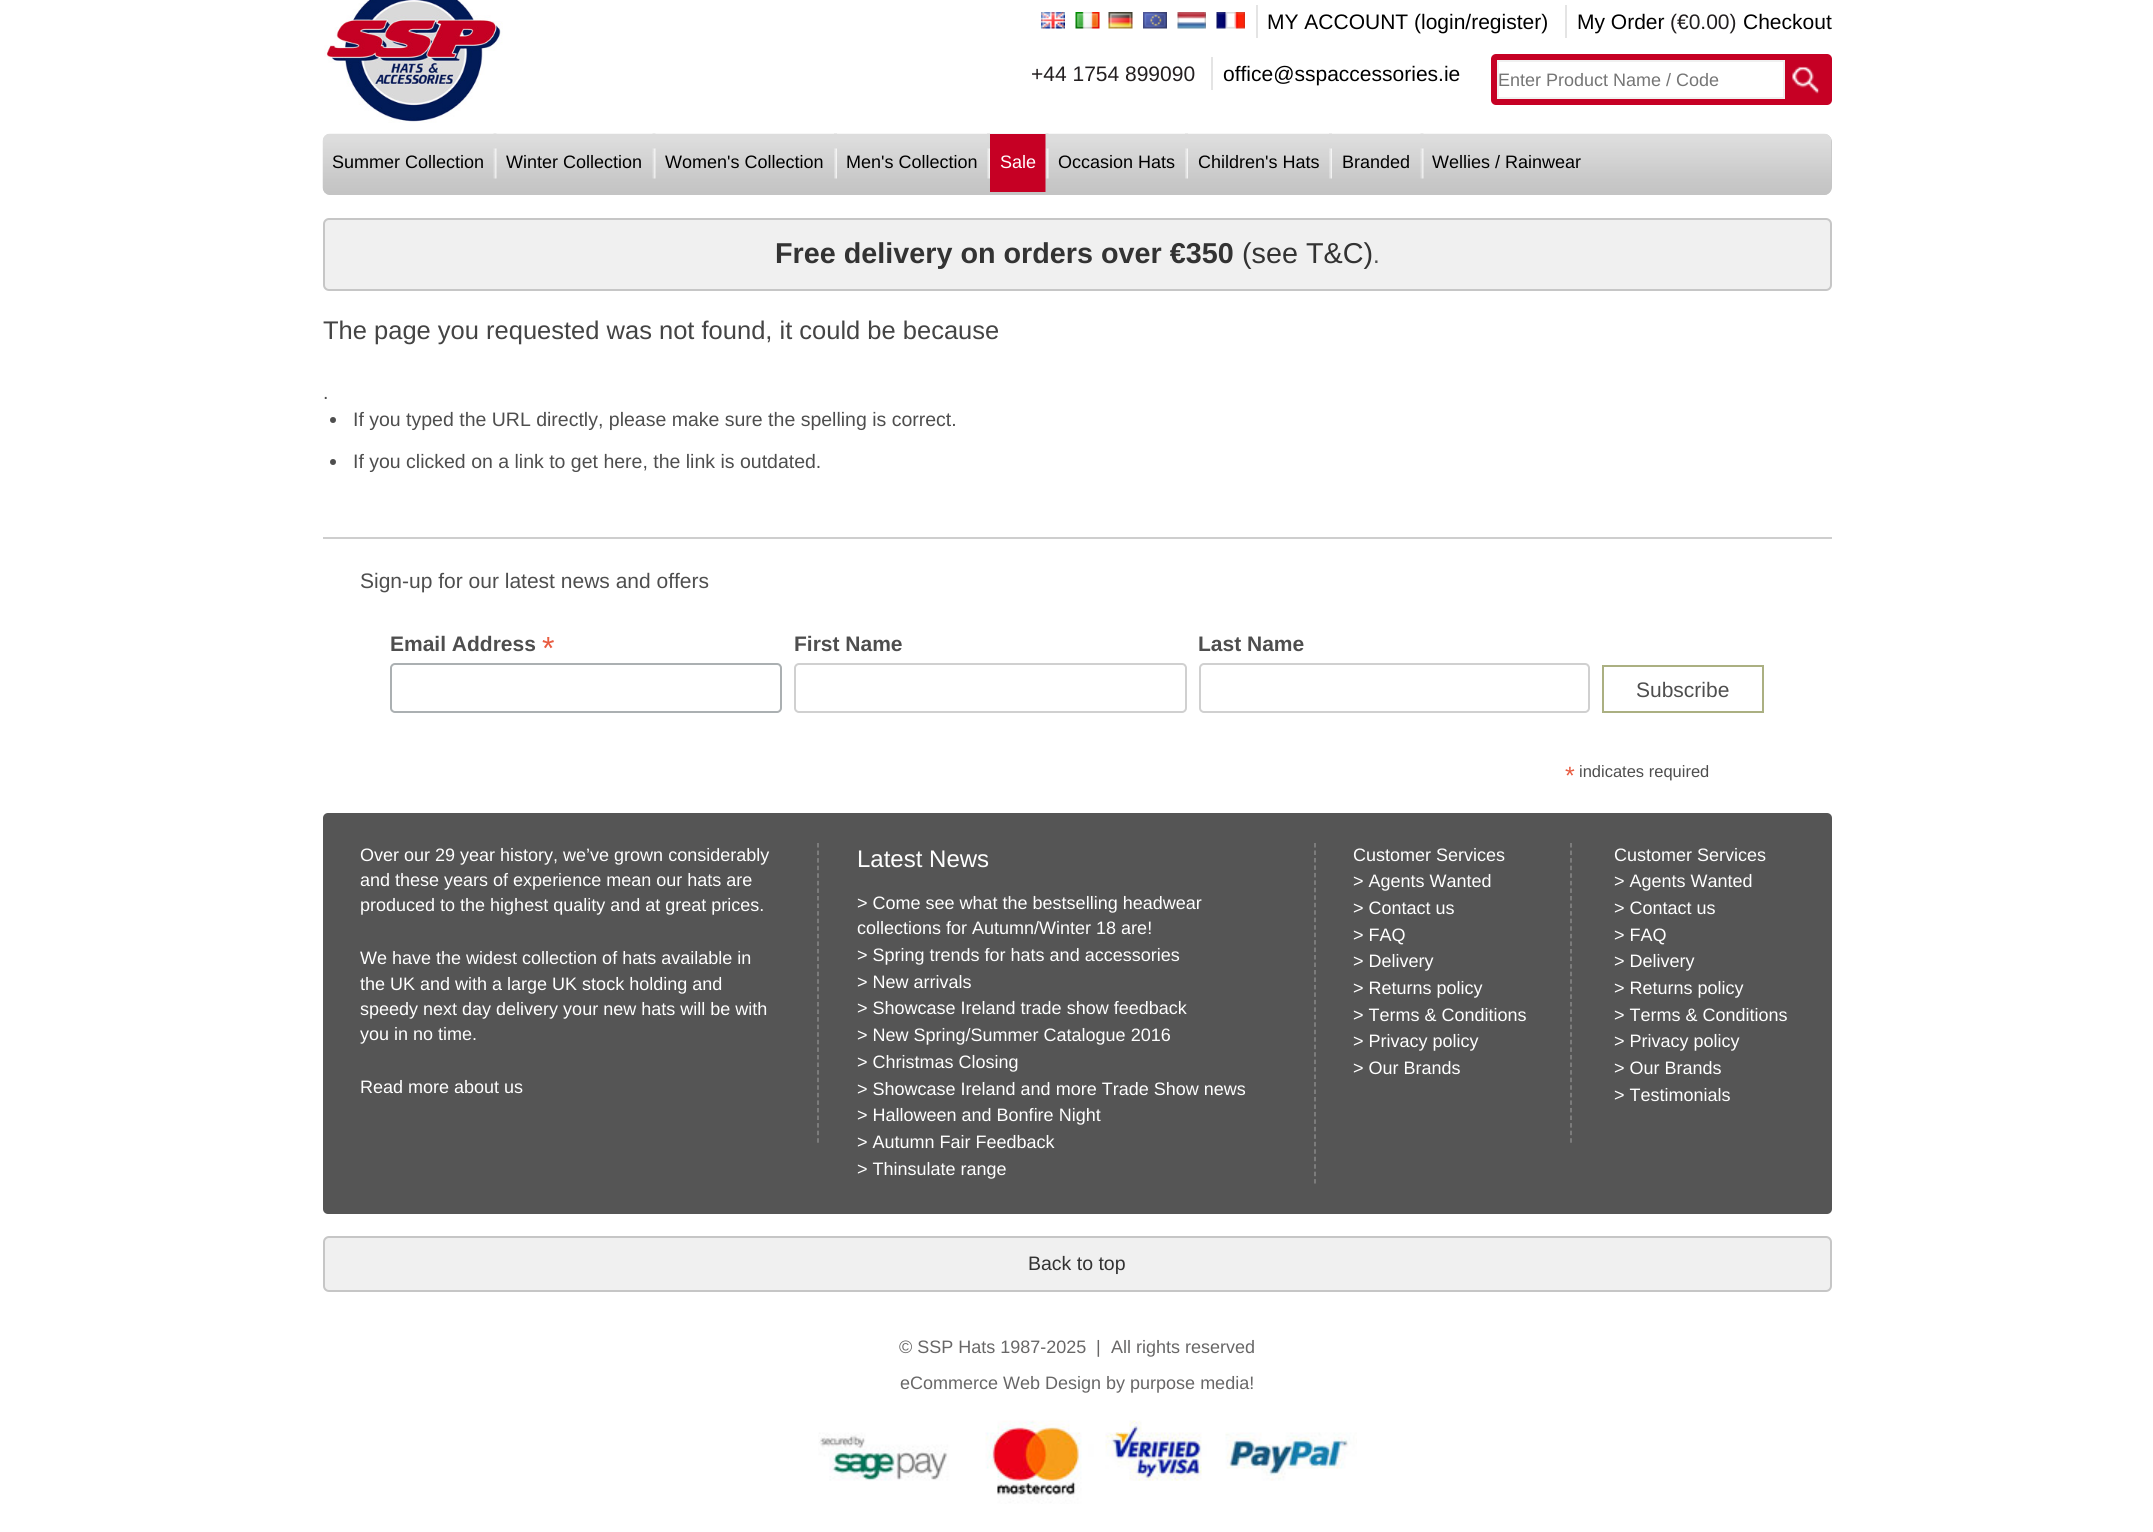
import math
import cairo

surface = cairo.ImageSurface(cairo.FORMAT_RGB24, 2153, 1532)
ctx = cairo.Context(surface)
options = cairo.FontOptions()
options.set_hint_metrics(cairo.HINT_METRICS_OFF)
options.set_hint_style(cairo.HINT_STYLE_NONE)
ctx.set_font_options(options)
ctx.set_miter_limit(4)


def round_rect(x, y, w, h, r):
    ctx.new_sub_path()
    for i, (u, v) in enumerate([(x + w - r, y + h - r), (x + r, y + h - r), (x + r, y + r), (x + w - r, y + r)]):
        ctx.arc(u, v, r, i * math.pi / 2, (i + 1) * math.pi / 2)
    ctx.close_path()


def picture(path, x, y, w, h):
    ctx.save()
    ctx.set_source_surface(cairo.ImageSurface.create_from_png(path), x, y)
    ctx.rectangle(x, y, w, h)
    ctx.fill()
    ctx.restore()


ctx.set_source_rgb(1, 1, 1)
ctx.paint()
picture("img1.png", 324, 0, 179, 123)
picture("img2.png", 1041, 12, 24, 17)
picture("img3.png", 1075, 12, 25, 17)
picture("img4.png", 1108, 12, 25, 17)
picture("img5.png", 1143, 12, 24, 17)
picture("img6.png", 1177, 12, 29, 17)
picture("img7.png", 1216, 12, 29, 17)
ctx.set_source_rgb(0.894, 0.894, 0.894)
ctx.rectangle(1256, 5, 2, 33)
ctx.fill()
ctx.select_font_face("Liberation Sans")
ctx.set_font_size(21)
ctx.set_source_rgb(0, 0, 0)
ctx.move_to(1267, 29)
ctx.show_text("MY ACCOUNT (login/register)")
ctx.set_source_rgb(0.894, 0.894, 0.894)
ctx.rectangle(1565, 5, 2, 33)
ctx.fill()
ctx.set_source_rgb(0, 0, 0)
ctx.move_to(1577, 29)
ctx.show_text("My Order")
ctx.set_source_rgb(0.137, 0.122, 0.125)
ctx.move_to(1670, 29)
ctx.show_text("(€0.00)")
ctx.set_source_rgb(0, 0, 0)
ctx.move_to(1743, 29)
ctx.show_text("Checkout")
ctx.set_source_rgb(0.137, 0.122, 0.125)
ctx.move_to(1031, 81)
ctx.show_text("+44 1754 899090")
ctx.set_source_rgb(0.894, 0.894, 0.894)
ctx.rectangle(1211, 57, 2, 33)
ctx.fill()
ctx.set_source_rgb(0, 0, 0)
ctx.move_to(1223, 81)
ctx.show_text("office@sspaccessories.ie")
ctx.set_source_rgb(0.776, 0, 0.141)
round_rect(1491, 54, 341, 51, 5)
ctx.fill()
ctx.set_source_rgb(1, 1, 1)
ctx.rectangle(1498, 61, 286, 37)
ctx.fill_preserve()
ctx.set_source_rgb(0.941, 0.941, 0.941)
ctx.stroke()
ctx.set_font_size(18)
ctx.set_source_rgb(0.459, 0.459, 0.459)
ctx.move_to(1498, 86)
ctx.show_text("Enter Product Name / Code")
picture("img8.png", 1792, 66, 28, 28)
ctx.set_source_rgb(0.769, 0.769, 0.769)
round_rect(323, 134, 1509, 61, 8)
ctx.fill()
picture("img9.png", 322, 133, 1510, 62)
ctx.set_source_rgb(0, 0, 0)
ctx.move_to(332, 168)
ctx.show_text("Summer Collection")
picture("img10.png", 493, 133, 4, 46)
ctx.move_to(506, 168)
ctx.show_text("Winter Collection")
picture("img10.png", 652, 133, 4, 46)
ctx.move_to(665, 168)
ctx.show_text("Women's Collection")
picture("img11.png", 834, 133, 3, 46)
ctx.move_to(846, 168)
ctx.show_text("Men's Collection")
picture("img11.png", 987, 133, 3, 46)
ctx.set_source_rgb(0.776, 0, 0.141)
ctx.rectangle(990, 134, 56, 58)
ctx.fill()
ctx.set_source_rgb(1, 1, 1)
ctx.move_to(1000, 168)
ctx.show_text("Sale")
picture("img12.png", 1045, 133, 4, 59)
ctx.set_source_rgb(0, 0, 0)
ctx.move_to(1058, 168)
ctx.show_text("Occasion Hats")
picture("img13.png", 1185, 133, 3, 46)
ctx.move_to(1198, 168)
ctx.show_text("Children's Hats")
picture("img13.png", 1329, 133, 3, 46)
ctx.move_to(1342, 168)
ctx.show_text("Branded")
picture("img10.png", 1420, 133, 4, 46)
ctx.move_to(1432, 168)
ctx.show_text("Wellies / Rainwear")
ctx.set_source_rgb(0.941, 0.941, 0.941)
round_rect(324, 219, 1507, 71, 5)
ctx.fill_preserve()
ctx.set_source_rgb(0.776, 0.776, 0.776)
ctx.stroke()
ctx.select_font_face("Liberation Sans", cairo.FONT_SLANT_NORMAL, cairo.FONT_WEIGHT_BOLD)
ctx.set_font_size(28.75)
ctx.set_source_rgb(0.2, 0.2, 0.2)
ctx.move_to(775, 263)
ctx.show_text("Free delivery on orders over €350")
ctx.select_font_face("Liberation Sans")
ctx.move_to(1242, 263)
ctx.show_text("(see T&C)")
ctx.set_font_size(24)
ctx.set_source_rgb(0.306, 0.306, 0.306)
ctx.move_to(1373, 263)
ctx.show_text(".")
ctx.set_font_size(25.5)
ctx.set_source_rgb(0.267, 0.267, 0.267)
ctx.move_to(323, 339)
ctx.show_text("The page you requested was not found, it could be because")
ctx.set_font_size(19.5)
ctx.set_source_rgb(0.306, 0.306, 0.306)
ctx.move_to(323, 399)
ctx.show_text(".")
ctx.new_path()
ctx.arc(333, 420, 3, 0, 2 * math.pi)
ctx.fill()
ctx.move_to(353, 426)
ctx.show_text("If you typed the URL directly, please make sure the spelling is correct.")
ctx.new_path()
ctx.arc(333, 462, 3, 0, 2 * math.pi)
ctx.fill()
ctx.move_to(353, 468)
ctx.show_text("If you clicked on a link to get here, the link is outdated.")
ctx.set_source_rgb(0.808, 0.808, 0.808)
ctx.rectangle(323, 537, 1509, 2)
ctx.fill()
ctx.set_font_size(21)
ctx.set_source_rgb(0.306, 0.306, 0.306)
ctx.move_to(360, 588)
ctx.show_text("Sign-up for our latest news and offers")
ctx.select_font_face("Liberation Sans", cairo.FONT_SLANT_NORMAL, cairo.FONT_WEIGHT_BOLD)
ctx.move_to(390, 651)
ctx.show_text("Email Address")
ctx.select_font_face("Liberation Sans")
ctx.set_font_size(32)
ctx.set_source_rgb(0.91, 0.361, 0.255)
ctx.move_to(542, 659)
ctx.show_text("*")
round_rect(391, 664, 390, 48, 4)
ctx.set_source_rgb(0.671, 0.69, 0.698)
ctx.stroke()
ctx.select_font_face("Liberation Sans", cairo.FONT_SLANT_NORMAL, cairo.FONT_WEIGHT_BOLD)
ctx.set_font_size(21)
ctx.set_source_rgb(0.306, 0.306, 0.306)
ctx.move_to(794, 651)
ctx.show_text("First Name")
round_rect(795, 664, 391, 48, 4)
ctx.set_source_rgb(0.816, 0.816, 0.816)
ctx.stroke()
ctx.set_source_rgb(0.306, 0.306, 0.306)
ctx.move_to(1198, 651)
ctx.show_text("Last Name")
round_rect(1200, 664, 389, 48, 4)
ctx.set_source_rgb(0.816, 0.816, 0.816)
ctx.stroke()
ctx.rectangle(1603, 666, 160, 46)
ctx.set_source_rgb(0.671, 0.69, 0.51)
ctx.stroke()
ctx.select_font_face("Liberation Sans")
ctx.set_source_rgb(0.306, 0.306, 0.306)
ctx.move_to(1636, 697)
ctx.show_text("Subscribe")
ctx.set_font_size(25)
ctx.set_source_rgb(0.91, 0.361, 0.255)
ctx.move_to(1565, 784)
ctx.show_text("*")
ctx.set_font_size(16.5)
ctx.set_source_rgb(0.306, 0.306, 0.306)
ctx.move_to(1579, 777)
ctx.show_text("indicates required")
ctx.set_source_rgb(0.333, 0.333, 0.333)
round_rect(323, 813, 1509, 401, 5)
ctx.fill()
ctx.new_path()
ctx.move_to(818, 843)
ctx.line_to(818, 1143)
ctx.set_source_rgb(0.537, 0.537, 0.537)
ctx.set_line_width(1.5)
ctx.set_dash([4.5, 3.07])
ctx.stroke()
ctx.set_font_size(18)
ctx.set_source_rgb(1, 1, 1)
ctx.move_to(360, 861)
ctx.show_text("Over our 29 year history, we’ve grown considerably")
ctx.move_to(360, 886)
ctx.show_text("and these years of experience mean our hats are")
ctx.move_to(360, 911)
ctx.show_text("produced to the highest quality and at great prices.")
ctx.move_to(360, 964)
ctx.show_text("We have the widest collection of hats available in")
ctx.move_to(360, 990)
ctx.show_text("the UK and with a large UK stock holding and")
ctx.move_to(360, 1015)
ctx.show_text("speedy next day delivery your new hats will be with")
ctx.move_to(360, 1040)
ctx.show_text("you in no time.")
ctx.move_to(360, 1093)
ctx.show_text("Read more about us")
ctx.new_path()
ctx.move_to(1315, 843)
ctx.line_to(1315, 1183.5)
ctx.set_source_rgb(0.537, 0.537, 0.537)
ctx.set_dash([4.5, 2.97])
ctx.stroke()
ctx.set_font_size(24)
ctx.set_source_rgb(1, 1, 1)
ctx.move_to(857, 867)
ctx.show_text("Latest News")
ctx.set_font_size(18)
ctx.move_to(857, 909)
ctx.show_text("> Come see what the bestselling headwear")
ctx.move_to(857, 934)
ctx.show_text("collections for Autumn/Winter 18 are!")
ctx.move_to(857, 961)
ctx.show_text("> Spring trends for hats and accessories")
ctx.move_to(857, 988)
ctx.show_text("> New arrivals")
ctx.move_to(857, 1014)
ctx.show_text("> Showcase Ireland trade show feedback")
ctx.move_to(857, 1041)
ctx.show_text("> New Spring/Summer Catalogue 2016")
ctx.move_to(857, 1068)
ctx.show_text("> Christmas Closing")
ctx.move_to(857, 1095)
ctx.show_text("> Showcase Ireland and more Trade Show news")
ctx.move_to(857, 1121)
ctx.show_text("> Halloween and Bonfire Night")
ctx.move_to(857, 1148)
ctx.show_text("> Autumn Fair Feedback")
ctx.move_to(857, 1175)
ctx.show_text("> Thinsulate range")
ctx.new_path()
ctx.move_to(1571, 843)
ctx.line_to(1571, 1143)
ctx.set_source_rgb(0.537, 0.537, 0.537)
ctx.set_dash([4.5, 3.07])
ctx.stroke()
ctx.set_source_rgb(1, 1, 1)
ctx.move_to(1353, 861)
ctx.show_text("Customer Services")
ctx.move_to(1353, 887)
ctx.show_text("> Agents Wanted")
ctx.move_to(1353, 914)
ctx.show_text("> Contact us")
ctx.move_to(1353, 941)
ctx.show_text("> FAQ")
ctx.move_to(1353, 967)
ctx.show_text("> Delivery")
ctx.move_to(1353, 994)
ctx.show_text("> Returns policy")
ctx.move_to(1353, 1021)
ctx.show_text("> Terms & Conditions")
ctx.move_to(1353, 1047)
ctx.show_text("> Privacy policy")
ctx.move_to(1353, 1074)
ctx.show_text("> Our Brands")
ctx.move_to(1614, 861)
ctx.show_text("Customer Services")
ctx.move_to(1614, 887)
ctx.show_text("> Agents Wanted")
ctx.move_to(1614, 914)
ctx.show_text("> Contact us")
ctx.move_to(1614, 941)
ctx.show_text("> FAQ")
ctx.move_to(1614, 967)
ctx.show_text("> Delivery")
ctx.move_to(1614, 994)
ctx.show_text("> Returns policy")
ctx.move_to(1614, 1021)
ctx.show_text("> Terms & Conditions")
ctx.move_to(1614, 1047)
ctx.show_text("> Privacy policy")
ctx.move_to(1614, 1074)
ctx.show_text("> Our Brands")
ctx.move_to(1614, 1101)
ctx.show_text("> Testimonials")
ctx.set_source_rgb(0.941, 0.941, 0.941)
round_rect(324, 1237, 1507, 54, 5)
ctx.fill_preserve()
ctx.set_source_rgb(0.776, 0.776, 0.776)
ctx.set_line_width(2)
ctx.set_dash([])
ctx.stroke()
ctx.set_font_size(19.5)
ctx.set_source_rgb(0.2, 0.2, 0.2)
ctx.move_to(1028, 1270)
ctx.show_text("Back to top")
ctx.set_font_size(18)
ctx.set_source_rgb(0.408, 0.404, 0.404)
ctx.move_to(899, 1353)
ctx.show_text("© SSP Hats 1987-2025")
ctx.move_to(1096, 1353)
ctx.show_text("|")
ctx.move_to(1111, 1353)
ctx.show_text("All rights reserved")
ctx.move_to(900, 1389)
ctx.show_text("eCommerce Web Design by purpose media!")
picture("img14.png", 818, 1420, 539, 84)
surface.write_to_png("page.png")
